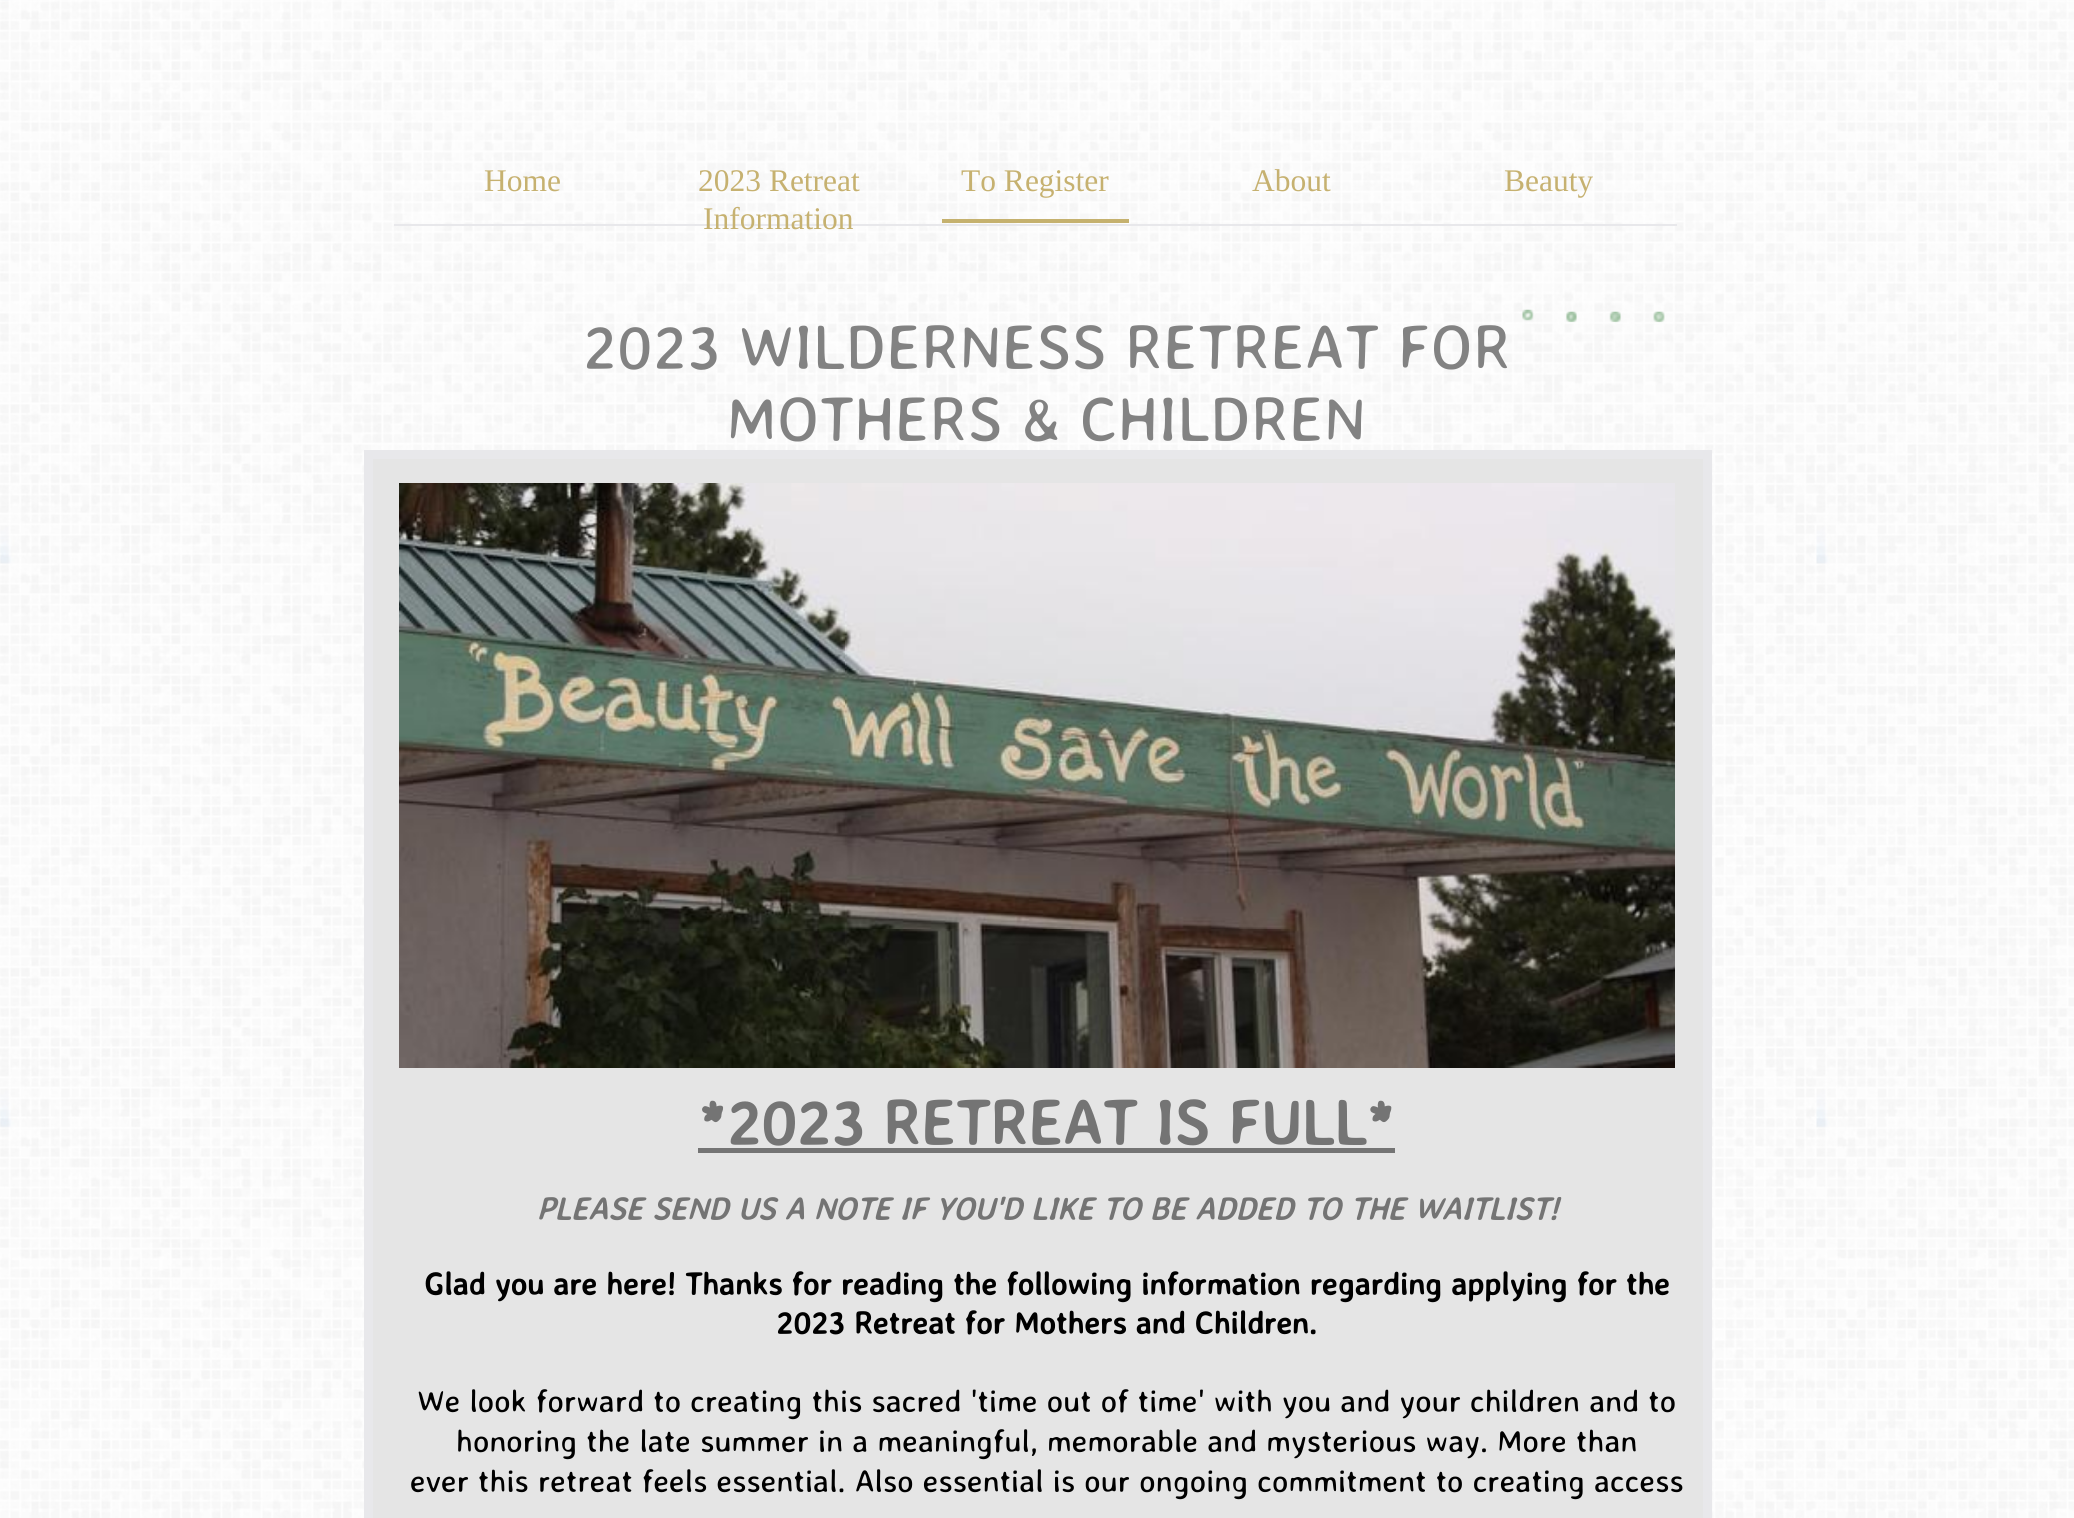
import math
import cairo

surface = cairo.ImageSurface(cairo.FORMAT_RGB24, 2074, 1518)
ctx = cairo.Context(surface)
options = cairo.FontOptions()
options.set_hint_metrics(cairo.HINT_METRICS_OFF)
options.set_hint_style(cairo.HINT_STYLE_NONE)
ctx.set_font_options(options)
ctx.set_miter_limit(4)


def picture(path, x, y, w, h):
    ctx.save()
    ctx.set_source_surface(cairo.ImageSurface.create_from_png(path), x, y)
    ctx.rectangle(x, y, w, h)
    ctx.fill()
    ctx.restore()


ctx.set_source_rgb(1, 1, 1)
ctx.paint()
picture("img1.png", 0, 0, 2074, 1518)
ctx.set_source_rgb(0.898, 0.898, 0.898)
ctx.rectangle(368.5, 454.5, 1339, 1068)
ctx.fill_preserve()
ctx.set_source_rgb(0.91, 0.91, 0.918)
ctx.set_line_width(9)
ctx.stroke()
ctx.rectangle(394, 224, 1283, 2)
ctx.fill()
ctx.select_font_face("Liberation Serif")
ctx.set_font_size(31.5)
ctx.set_source_rgb(0.776, 0.694, 0.439)
ctx.move_to(484, 191)
ctx.show_text("Home")
ctx.move_to(698, 191)
ctx.show_text("2023 Retreat")
ctx.move_to(703, 229)
ctx.show_text("Information")
ctx.set_source_rgb(0.773, 0.694, 0.431)
ctx.rectangle(942, 219, 187, 4)
ctx.fill()
ctx.set_source_rgb(0.776, 0.694, 0.439)
ctx.move_to(961, 191)
ctx.show_text("To Register")
ctx.move_to(1252, 191)
ctx.show_text("About")
ctx.move_to(1504, 191)
ctx.show_text("Beauty")
picture("img2.png", 1522, 309, 12, 12)
picture("img3.png", 1566, 311, 11, 12)
picture("img4.png", 1609, 311, 12, 12)
picture("img5.png", 1653, 311, 12, 12)
ctx.select_font_face("Averia Sans Libre")
ctx.set_font_size(63)
ctx.set_source_rgb(0.51, 0.51, 0.51)
ctx.move_to(583, 369)
ctx.show_text("2023 WILDERNESS RETREAT FOR")
ctx.move_to(726, 441)
ctx.show_text("MOTHERS & CHILDREN")
picture("img6.png", 399, 483, 1276, 585)
ctx.select_font_face("Averia Sans Libre", cairo.FONT_SLANT_NORMAL, cairo.FONT_WEIGHT_BOLD)
ctx.set_source_rgb(0.455, 0.455, 0.455)
ctx.move_to(698, 1145)
ctx.show_text("*2023 RETREAT IS FULL*")
ctx.rectangle(698, 1148, 697, 5)
ctx.fill()
ctx.select_font_face("Averia Sans Libre", cairo.FONT_SLANT_ITALIC, cairo.FONT_WEIGHT_BOLD)
ctx.set_font_size(31.5)
ctx.move_to(536, 1220)
ctx.show_text("PLEASE SEND US A NOTE IF YOU'D LIKE TO BE ADDED TO THE WAITLIST!")
ctx.select_font_face("Averia Sans Libre", cairo.FONT_SLANT_NORMAL, cairo.FONT_WEIGHT_BOLD)
ctx.set_source_rgb(0, 0, 0)
ctx.move_to(424, 1295)
ctx.show_text("Glad you are here! Thanks for reading the following information regarding applying for the")
ctx.move_to(776, 1334)
ctx.show_text("2023 Retreat for Mothers and Children.")
ctx.select_font_face("Averia Sans Libre")
ctx.move_to(417, 1412)
ctx.show_text("We look forward to creating this sacred 'time out of time' with you and your children and to")
ctx.move_to(456, 1452)
ctx.show_text("honoring the late summer in a meaningful, memorable and mysterious way. More than")
ctx.move_to(410, 1492)
ctx.show_text("ever this retreat feels essential. Also essential is our ongoing commitment to creating access")
surface.write_to_png("page.png")
